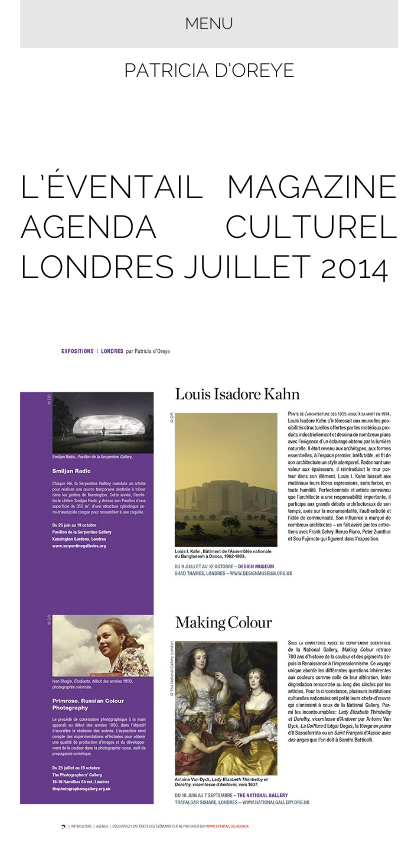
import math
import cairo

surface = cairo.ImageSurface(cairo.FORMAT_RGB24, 418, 853)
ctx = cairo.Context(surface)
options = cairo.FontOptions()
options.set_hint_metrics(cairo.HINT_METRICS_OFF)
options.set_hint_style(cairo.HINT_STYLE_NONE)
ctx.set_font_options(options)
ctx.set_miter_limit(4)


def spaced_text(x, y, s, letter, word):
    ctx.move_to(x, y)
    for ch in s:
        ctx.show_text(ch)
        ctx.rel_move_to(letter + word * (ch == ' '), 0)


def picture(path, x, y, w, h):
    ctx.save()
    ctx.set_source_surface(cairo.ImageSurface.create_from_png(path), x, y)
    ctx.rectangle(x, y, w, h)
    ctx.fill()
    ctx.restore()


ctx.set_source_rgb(1, 1, 1)
ctx.paint()
ctx.set_source_rgb(0.902, 0.902, 0.902)
ctx.rectangle(20, 0, 378, 48)
ctx.fill()
ctx.select_font_face("Raleway Light")
ctx.set_font_size(16)
ctx.set_source_rgb(0, 0, 0)
ctx.move_to(185, 29)
ctx.show_text("MENU")
ctx.set_font_size(19.25)
ctx.move_to(124, 77)
ctx.show_text("PATRICIA D’OREYE")
ctx.set_font_size(32)
spaced_text(20, 198, "L’ÉVENTAIL MAGAZINE", 0.5, 14)
spaced_text(20, 238, "AGENDA CULTUREL", 0.5, 59)
spaced_text(20, 278, "LONDRES JUILLET 2014", 0.5, 0)
picture("img1.png", 20, 347, 373, 483)
surface.write_to_png("page.png")
